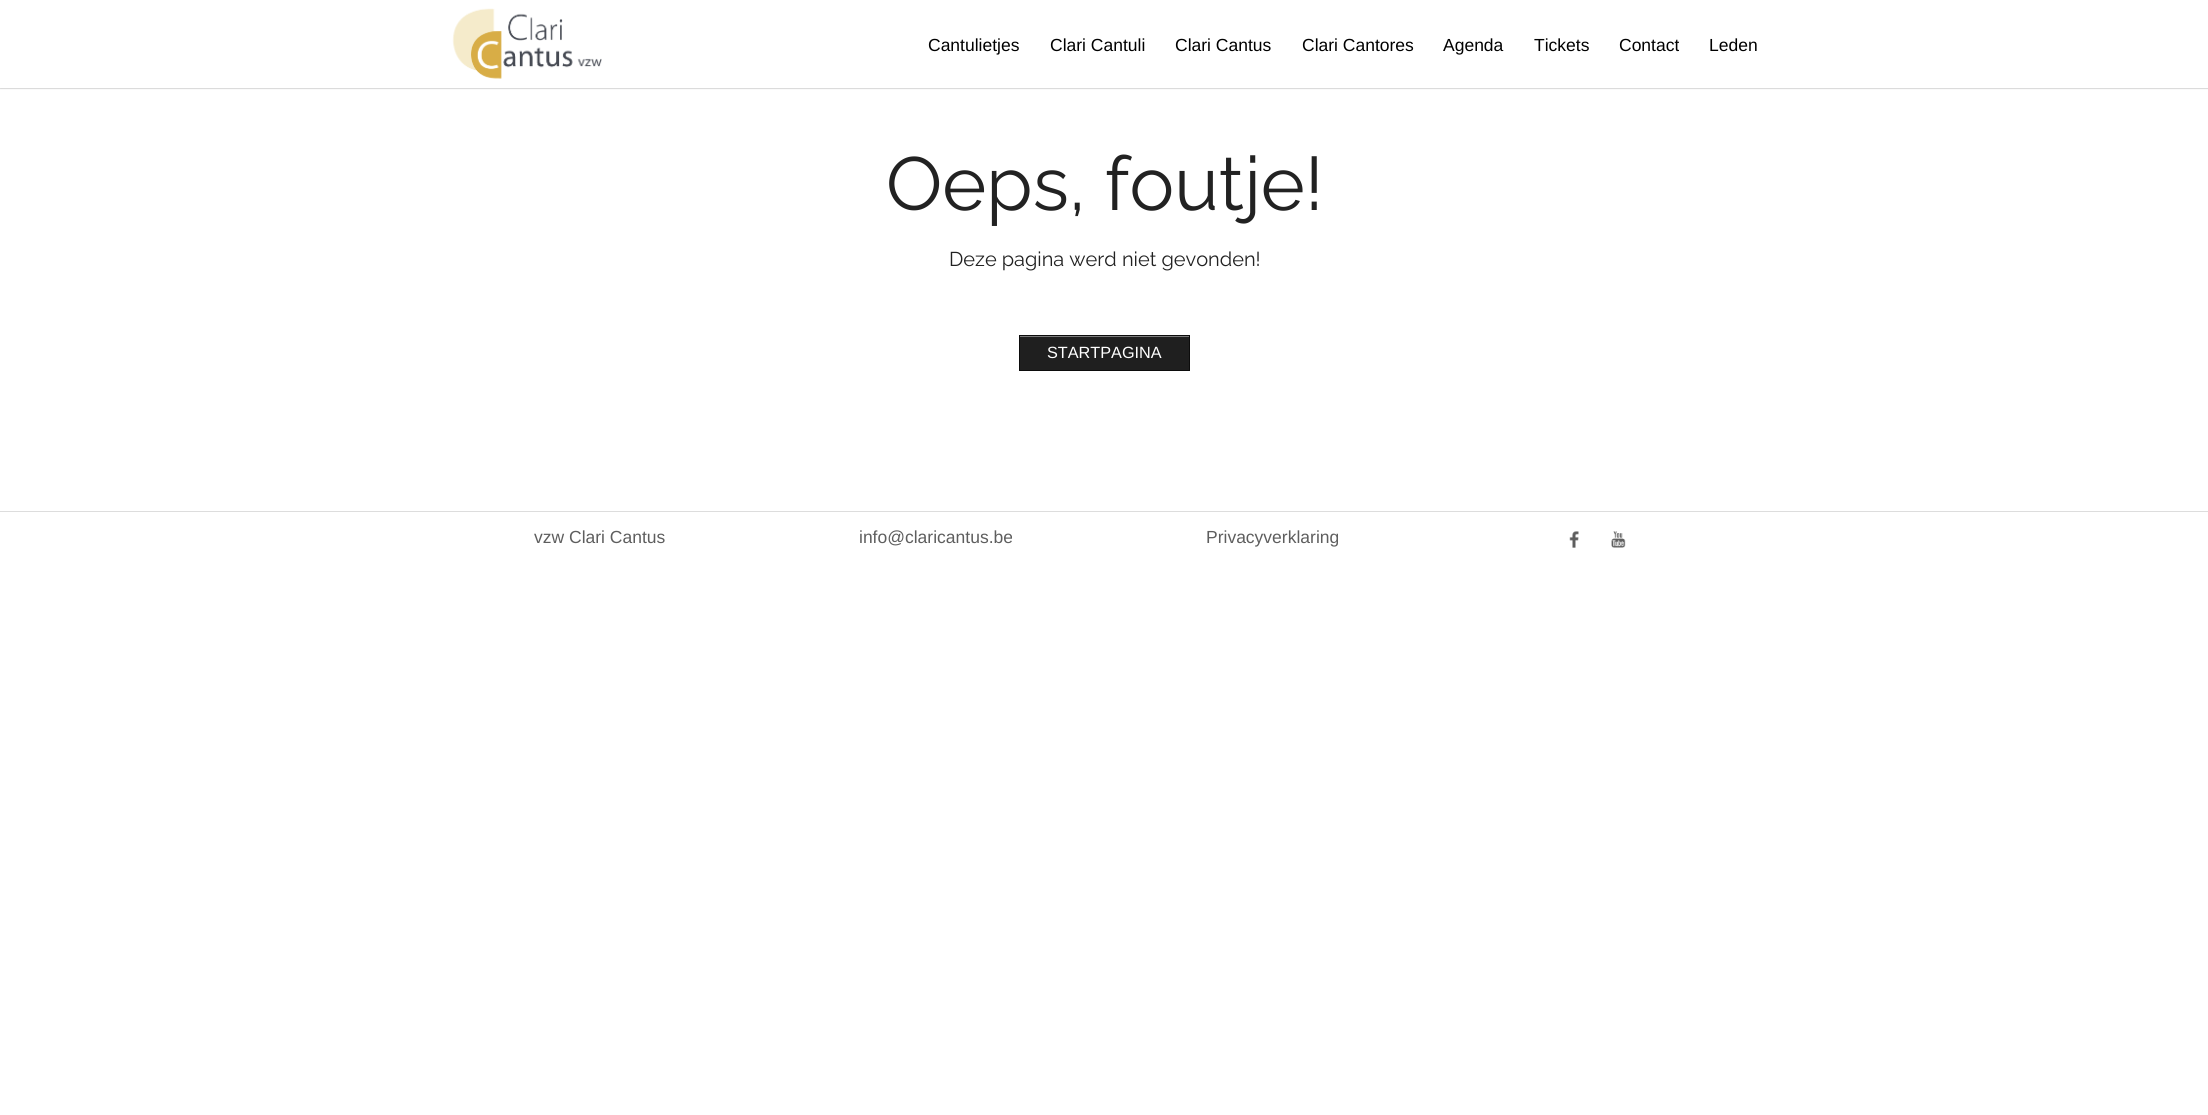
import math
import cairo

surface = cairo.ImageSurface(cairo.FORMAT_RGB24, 2208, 1115)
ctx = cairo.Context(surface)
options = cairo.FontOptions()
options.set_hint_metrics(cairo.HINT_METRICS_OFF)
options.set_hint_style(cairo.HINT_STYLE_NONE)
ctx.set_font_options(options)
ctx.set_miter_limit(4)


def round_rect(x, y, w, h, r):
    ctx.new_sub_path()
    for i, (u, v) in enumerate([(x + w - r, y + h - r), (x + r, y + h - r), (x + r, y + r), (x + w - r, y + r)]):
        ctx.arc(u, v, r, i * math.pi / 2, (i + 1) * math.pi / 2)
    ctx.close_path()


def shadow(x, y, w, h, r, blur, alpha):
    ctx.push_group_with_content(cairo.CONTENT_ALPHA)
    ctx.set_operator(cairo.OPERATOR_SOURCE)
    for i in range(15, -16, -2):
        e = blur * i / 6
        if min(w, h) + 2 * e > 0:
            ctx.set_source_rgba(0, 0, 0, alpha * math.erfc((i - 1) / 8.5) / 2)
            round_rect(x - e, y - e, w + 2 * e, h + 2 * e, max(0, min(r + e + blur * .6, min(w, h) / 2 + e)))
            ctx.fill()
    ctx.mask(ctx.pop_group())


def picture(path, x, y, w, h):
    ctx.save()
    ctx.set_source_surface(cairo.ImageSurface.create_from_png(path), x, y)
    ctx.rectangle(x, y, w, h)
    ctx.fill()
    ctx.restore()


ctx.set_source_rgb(1, 1, 1)
ctx.paint()
ctx.set_source_rgb(0.941, 0.941, 0.941)
ctx.new_path()
ctx.move_to(0, 88)
ctx.line_to(0, 89)
ctx.line_to(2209, 89)
ctx.line_to(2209, 1)
ctx.line_to(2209, 88)
ctx.close_path()
ctx.fill()
ctx.set_source_rgb(0, 0, 0)
shadow(0, 1, 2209, 88, 0, 0.5, 0.1)
ctx.set_source_rgb(1, 1, 1)
ctx.rectangle(0, 0, 2208, 88)
ctx.fill()
picture("img1.png", 452, 8, 150, 71)
ctx.select_font_face("Liberation Sans")
ctx.set_font_size(17.5)
ctx.set_source_rgb(0, 0, 0)
ctx.move_to(928, 51)
ctx.show_text("Cantulietjes")
ctx.move_to(1050, 51)
ctx.show_text("Clari Cantuli")
ctx.move_to(1175, 51)
ctx.show_text("Clari Cantus")
ctx.move_to(1302, 51)
ctx.show_text("Clari Cantores")
ctx.move_to(1443, 51)
ctx.show_text("Agenda")
ctx.move_to(1534, 51)
ctx.show_text("Tickets")
ctx.move_to(1619, 51)
ctx.show_text("Contact")
ctx.move_to(1709, 51)
ctx.show_text("Leden")
ctx.select_font_face("Raleway")
ctx.set_font_size(75)
ctx.set_source_rgb(0.133, 0.133, 0.133)
ctx.move_to(886, 210)
ctx.show_text("Oeps, foutje!")
ctx.set_font_size(20)
ctx.move_to(949, 266)
ctx.show_text("Deze pagina werd niet gevonden!")
ctx.set_source_rgb(0.122, 0.122, 0.122)
ctx.rectangle(1020, 337, 169, 33)
ctx.fill()
ctx.set_source_rgb(0.482, 0.482, 0.482)
ctx.rectangle(1020, 336, 169, 1)
ctx.fill()
ctx.rectangle(1019.5, 335.5, 170, 35)
ctx.set_source_rgb(0.047, 0.047, 0.047)
ctx.set_line_width(1)
ctx.stroke()
ctx.select_font_face("Liberation Sans")
ctx.set_font_size(16.25)
ctx.set_source_rgb(1, 1, 1)
ctx.move_to(1047, 358)
ctx.show_text("STARTPAGINA")
ctx.set_source_rgb(0.867, 0.867, 0.867)
ctx.rectangle(0, 511, 2208, 1)
ctx.fill()
ctx.set_font_size(17.5)
ctx.set_source_rgb(0.369, 0.369, 0.369)
ctx.move_to(534, 543)
ctx.show_text("vzw Clari Cantus")
ctx.move_to(859, 543)
ctx.show_text("info@claricantus.be")
ctx.move_to(1206, 543)
ctx.show_text("Privacyverklaring")
picture("img2.png", 1569, 531, 10, 17)
picture("img3.png", 1611, 531, 15, 17)
surface.write_to_png("page.png")
